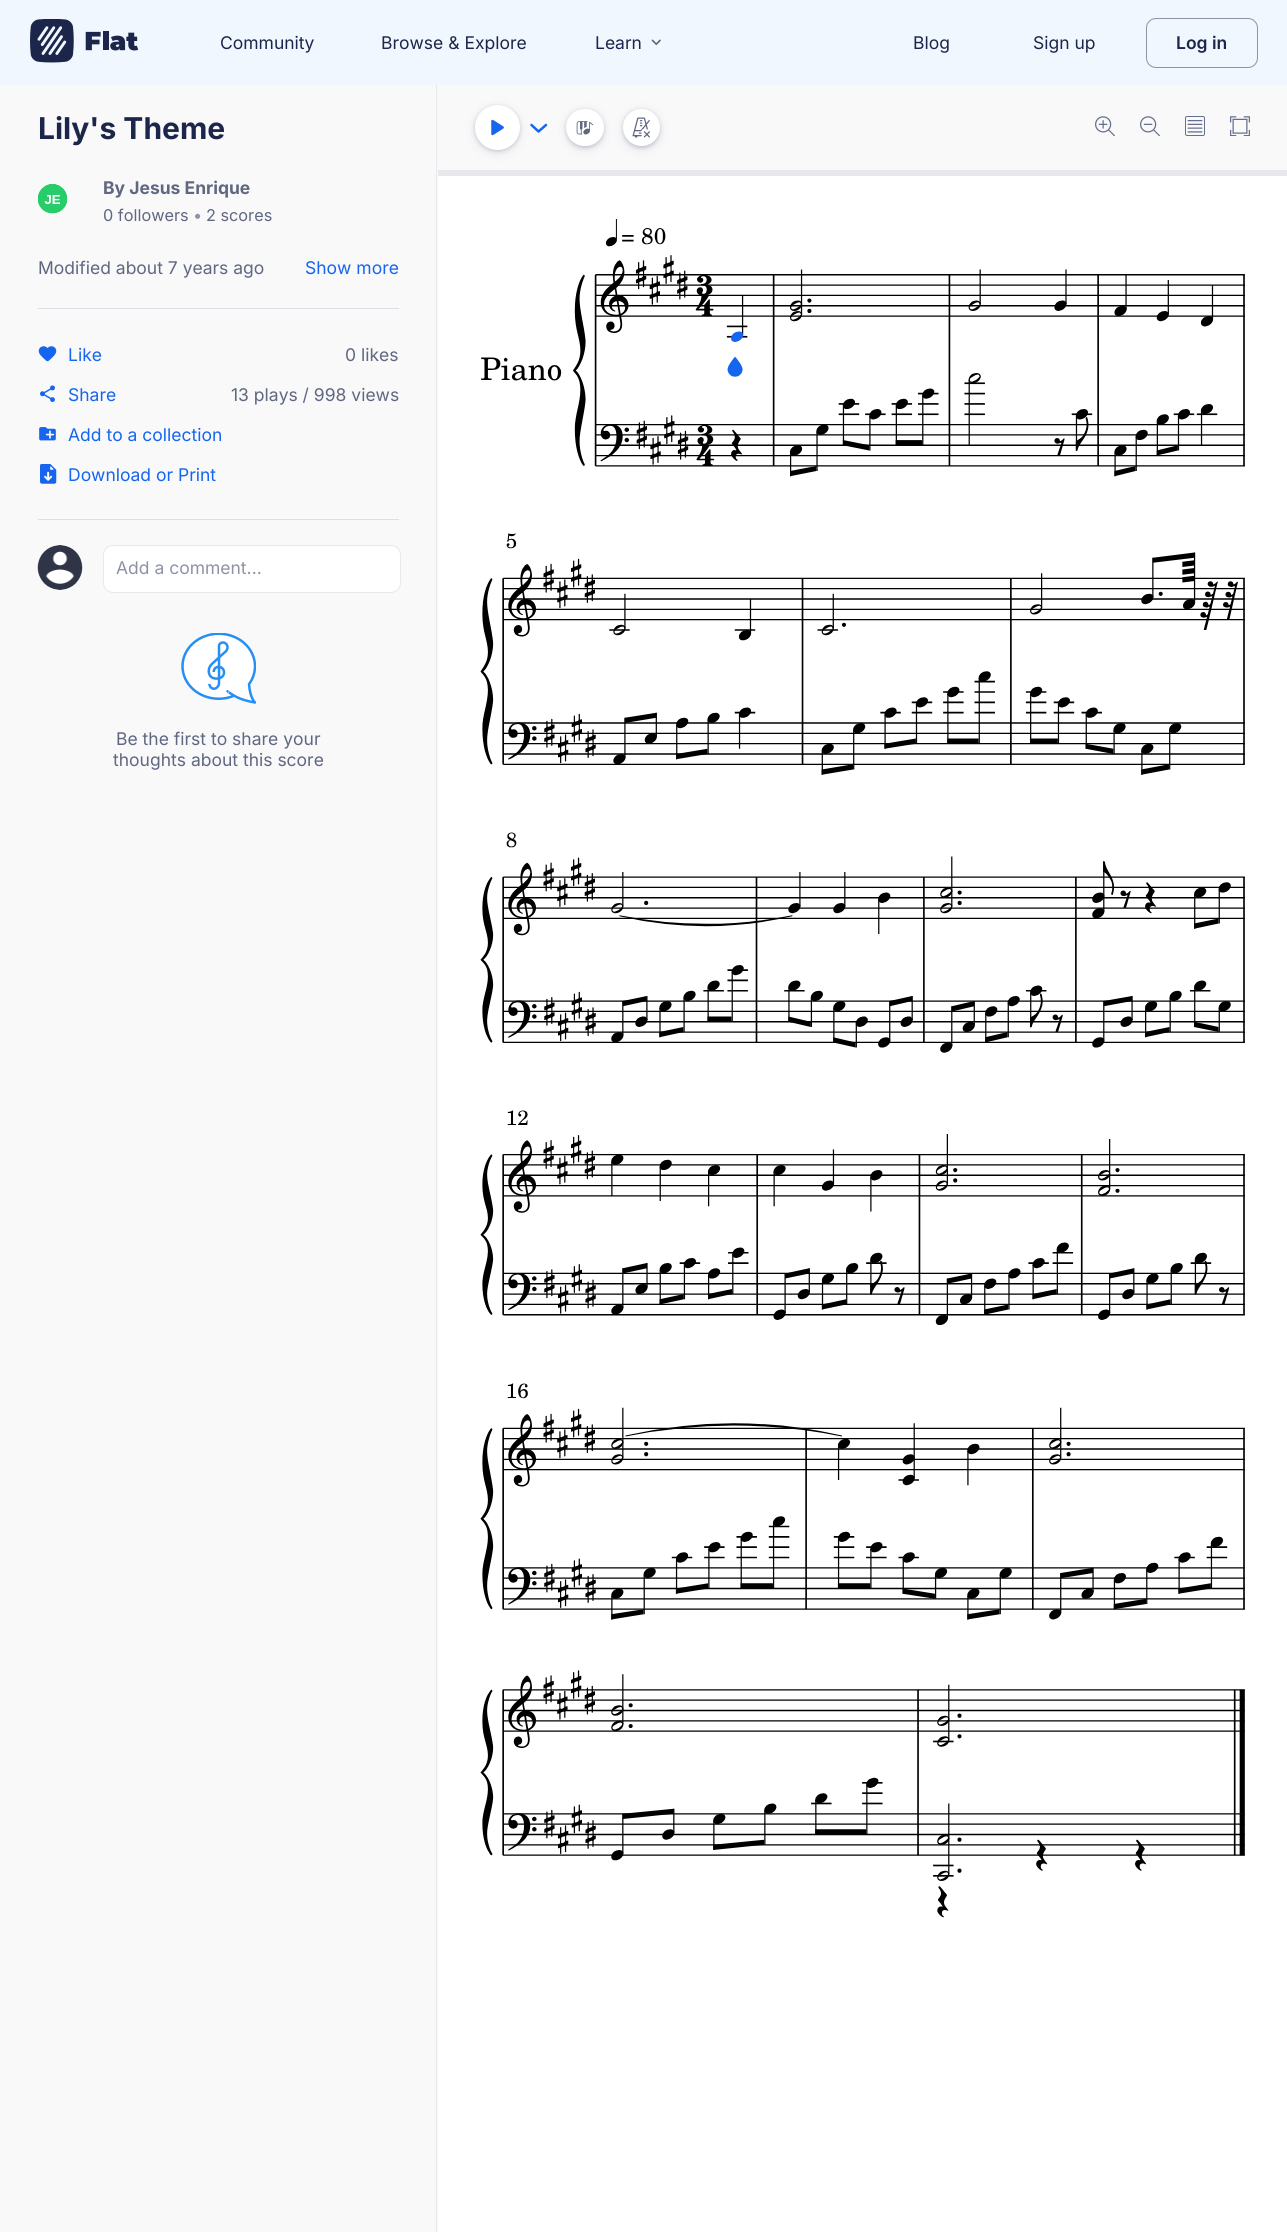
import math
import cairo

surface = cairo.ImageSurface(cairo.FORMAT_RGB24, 1287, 2232)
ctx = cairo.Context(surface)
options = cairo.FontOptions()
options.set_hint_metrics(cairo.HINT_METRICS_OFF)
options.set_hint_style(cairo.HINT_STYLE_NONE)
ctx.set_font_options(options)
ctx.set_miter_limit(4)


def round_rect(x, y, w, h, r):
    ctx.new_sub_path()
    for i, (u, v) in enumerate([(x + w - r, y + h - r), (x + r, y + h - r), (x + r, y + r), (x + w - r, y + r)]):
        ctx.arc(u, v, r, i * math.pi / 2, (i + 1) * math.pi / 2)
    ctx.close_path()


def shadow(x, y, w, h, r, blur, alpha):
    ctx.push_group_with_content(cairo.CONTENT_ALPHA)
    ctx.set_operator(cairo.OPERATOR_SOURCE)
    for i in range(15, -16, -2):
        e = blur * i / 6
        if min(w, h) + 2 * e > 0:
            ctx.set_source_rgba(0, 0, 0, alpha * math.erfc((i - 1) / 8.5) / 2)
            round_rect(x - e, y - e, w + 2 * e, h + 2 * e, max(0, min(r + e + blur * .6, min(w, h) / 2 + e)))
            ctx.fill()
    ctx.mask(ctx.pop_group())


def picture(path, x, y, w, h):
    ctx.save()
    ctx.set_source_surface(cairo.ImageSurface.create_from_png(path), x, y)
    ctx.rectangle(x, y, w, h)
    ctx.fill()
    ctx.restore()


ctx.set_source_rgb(1, 1, 1)
ctx.paint()
ctx.set_source_rgb(0.945, 0.965, 0.996)
ctx.rectangle(0, 0, 1287, 85)
ctx.fill()
picture("img1.png", 30, 19, 109, 44)
ctx.select_font_face("Inter")
ctx.set_font_size(17.5)
ctx.set_source_rgb(0.11, 0.149, 0.29)
ctx.move_to(220, 49)
ctx.show_text("Community")
ctx.move_to(381, 49)
ctx.show_text("Browse & Explore")
ctx.move_to(595, 49)
ctx.show_text("Learn")
picture("img2.png", 651, 39, 10, 7)
ctx.move_to(913, 49)
ctx.show_text("Blog")
ctx.move_to(1033, 49)
ctx.show_text("Sign up")
round_rect(1146.5, 18.5, 111, 49, 9.5)
ctx.set_source_rgb(0.553, 0.576, 0.647)
ctx.set_line_width(1)
ctx.stroke()
ctx.select_font_face("Inter SemiBold")
ctx.set_source_rgb(0.11, 0.149, 0.29)
ctx.move_to(1176, 49)
ctx.show_text("Log in")
ctx.set_source_rgb(0.976, 0.976, 0.98)
ctx.rectangle(0, 85, 438, 2147)
ctx.fill()
ctx.set_source_rgb(0.906, 0.91, 0.925)
ctx.rectangle(436, 85, 1, 2147)
ctx.fill()
ctx.select_font_face("Inter", cairo.FONT_SLANT_NORMAL, cairo.FONT_WEIGHT_BOLD)
ctx.set_font_size(30)
ctx.set_source_rgb(0.11, 0.149, 0.29)
ctx.move_to(38, 139)
ctx.show_text("Lily's Theme")
ctx.set_source_rgb(1, 1, 1)
ctx.new_path()
ctx.arc(53, 199, 15, 0, 2 * math.pi)
ctx.fill()
picture("img3.png", 38, 184, 30, 30)
ctx.set_font_size(17.5)
ctx.set_source_rgb(0.373, 0.404, 0.506)
ctx.move_to(103, 194)
ctx.show_text("By Jesus Enrique")
ctx.select_font_face("Inter")
ctx.set_font_size(16.25)
ctx.move_to(103, 221)
ctx.show_text("0 followers")
ctx.set_source_rgb(0.553, 0.576, 0.647)
ctx.move_to(193, 221)
ctx.show_text("•")
ctx.set_source_rgb(0.373, 0.404, 0.506)
ctx.move_to(206, 221)
ctx.show_text("2 scores")
ctx.set_font_size(17.5)
ctx.move_to(38, 274)
ctx.show_text("Modified about 7 years ago")
ctx.set_source_rgb(0.082, 0.396, 0.937)
ctx.move_to(305, 274)
ctx.show_text("Show more")
ctx.set_source_rgb(0.859, 0.871, 0.902)
ctx.rectangle(38, 308, 361, 1)
ctx.fill()
picture("img4.png", 38, 346, 19, 16)
ctx.set_source_rgb(0.082, 0.396, 0.937)
ctx.move_to(68, 361)
ctx.show_text("Like")
ctx.set_source_rgb(0.373, 0.404, 0.506)
ctx.move_to(345, 361)
ctx.show_text("0 likes")
picture("img5.png", 40, 385, 15, 17)
ctx.set_source_rgb(0.082, 0.396, 0.937)
ctx.move_to(68, 401)
ctx.show_text("Share")
ctx.set_source_rgb(0.373, 0.404, 0.506)
ctx.move_to(231, 401)
ctx.show_text("13 plays / 998 views")
picture("img6.png", 39, 427, 17, 14)
ctx.set_source_rgb(0.082, 0.396, 0.937)
ctx.move_to(68, 441)
ctx.show_text("Add to a collection")
picture("img7.png", 40, 464, 17, 20)
ctx.move_to(68, 481)
ctx.show_text("Download or Print")
ctx.set_source_rgb(0.859, 0.871, 0.902)
ctx.rectangle(38, 519, 361, 1)
ctx.fill()
ctx.set_source_rgb(1, 1, 1)
ctx.arc(60.5, 567.5, 22.5, 0, 2 * math.pi)
ctx.fill()
picture("img8.png", 37, 545, 46, 45)
round_rect(103.5, 545.5, 297, 47, 9.5)
ctx.fill_preserve()
ctx.set_source_rgb(0.906, 0.91, 0.925)
ctx.stroke()
ctx.set_source_rgb(0.553, 0.576, 0.647)
ctx.move_to(116, 574)
ctx.show_text("Add a comment...")
picture("img9.png", 181, 633, 75, 71)
ctx.set_source_rgb(0.373, 0.404, 0.506)
ctx.move_to(116, 745)
ctx.show_text("Be the first to share your")
ctx.move_to(113, 766)
ctx.show_text("thoughts about this score")
ctx.set_source_rgb(0.976, 0.976, 0.98)
ctx.rectangle(438, 85, 849, 85)
ctx.fill()
ctx.set_source_rgb(0.157, 0.188, 0.31)
shadow(475, 106, 45, 45, 22.5, 2, 0.2)
shadow(475, 108, 45, 45, 22.5, 5, 0.1)
ctx.set_source_rgb(1, 1, 1)
ctx.arc(497.5, 127.5, 22.5, 0, 2 * math.pi)
ctx.fill()
picture("img10.png", 491, 119, 13, 17)
ctx.new_path()
ctx.move_to(531.5, 125)
ctx.line_to(538.5, 131.5)
ctx.line_to(546, 125)
ctx.set_source_rgb(0.082, 0.396, 0.937)
ctx.set_line_width(2.5)
ctx.set_line_cap(cairo.LINE_CAP_ROUND)
ctx.set_line_join(cairo.LINE_JOIN_ROUND)
ctx.stroke()
ctx.set_source_rgb(0.157, 0.188, 0.31)
shadow(566, 110, 38, 38, 19, 2, 0.2)
shadow(566, 111, 38, 38, 19, 5, 0.1)
ctx.set_source_rgb(1, 1, 1)
round_rect(566, 109, 38, 37, 18.5)
ctx.fill()
picture("img11.png", 576, 121, 18, 14)
ctx.set_source_rgb(0.157, 0.188, 0.31)
shadow(623, 110, 37, 38, 18.5, 2, 0.2)
shadow(623, 111, 37, 38, 18.5, 5, 0.1)
ctx.set_source_rgb(1, 1, 1)
ctx.arc(641.5, 127.5, 18.5, 0, 2 * math.pi)
ctx.fill()
picture("img12.png", 632, 117, 18, 21)
picture("img13.png", 1095, 116, 20, 20)
picture("img14.png", 1140, 116, 20, 20)
picture("img15.png", 1185, 116, 20, 20)
picture("img16.png", 1230, 116, 20, 20)
ctx.set_source_rgb(0.906, 0.91, 0.925)
ctx.rectangle(438, 170, 849, 6)
ctx.fill()
picture("img17.png", 481, 219, 764, 258)
picture("img18.png", 480, 533, 765, 242)
picture("img19.png", 480, 832, 765, 221)
picture("img20.png", 480, 1110, 765, 215)
picture("img21.png", 480, 1383, 765, 237)
picture("img22.png", 480, 1670, 765, 248)
surface.write_to_png("page.png")
